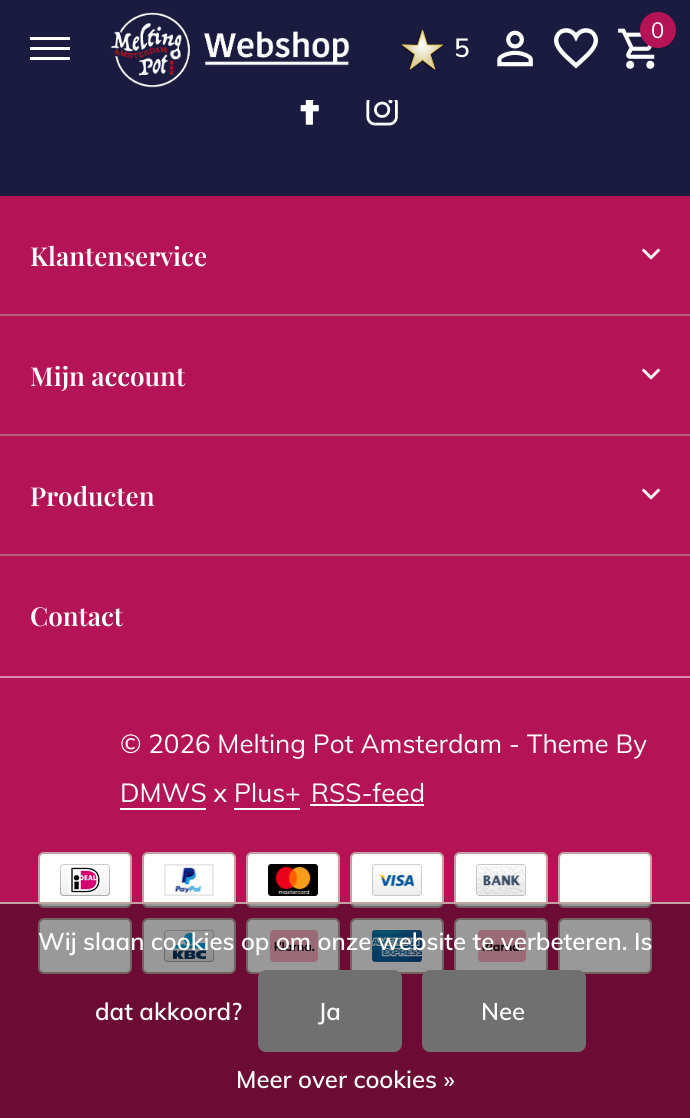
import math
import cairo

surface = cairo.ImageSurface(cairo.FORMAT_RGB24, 690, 1118)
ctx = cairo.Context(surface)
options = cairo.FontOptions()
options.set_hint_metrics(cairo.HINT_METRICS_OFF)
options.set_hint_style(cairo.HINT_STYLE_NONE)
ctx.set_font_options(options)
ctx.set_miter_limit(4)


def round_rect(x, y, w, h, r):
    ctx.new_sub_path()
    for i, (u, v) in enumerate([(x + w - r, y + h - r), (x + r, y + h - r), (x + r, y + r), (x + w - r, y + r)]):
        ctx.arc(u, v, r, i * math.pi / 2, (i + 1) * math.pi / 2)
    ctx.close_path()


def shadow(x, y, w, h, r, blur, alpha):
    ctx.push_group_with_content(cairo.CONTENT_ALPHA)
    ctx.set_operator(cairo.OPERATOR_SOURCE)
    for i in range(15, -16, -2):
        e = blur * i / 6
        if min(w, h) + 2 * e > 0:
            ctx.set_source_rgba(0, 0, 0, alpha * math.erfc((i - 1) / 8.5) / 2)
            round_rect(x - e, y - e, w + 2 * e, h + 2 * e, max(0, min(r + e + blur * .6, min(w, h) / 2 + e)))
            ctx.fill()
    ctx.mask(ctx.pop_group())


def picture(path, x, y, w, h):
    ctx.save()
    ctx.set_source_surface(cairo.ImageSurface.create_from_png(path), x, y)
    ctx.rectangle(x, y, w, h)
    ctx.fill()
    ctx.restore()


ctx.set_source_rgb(0.106, 0.106, 0.251)
ctx.paint()
picture("img1.png", 110, 12, 240, 76)
picture("img2.png", 497, 30, 36, 37)
picture("img3.png", 554, 28, 44, 41)
picture("img4.png", 618, 28, 37, 41)
ctx.set_source_rgb(0, 0, 0)
shadow(640, 16, 36, 36, 18, 2, 0.06)
ctx.set_source_rgb(0.706, 0.078, 0.333)
ctx.arc(658, 30, 18, 0, 2 * math.pi)
ctx.fill()
ctx.select_font_face("Muli")
ctx.set_font_size(22)
ctx.set_source_rgb(1, 1, 1)
ctx.move_to(651, 38)
ctx.show_text("0")
ctx.new_path()
ctx.move_to(30, 60)
ctx.line_to(70, 60)
ctx.line_to(70, 57)
ctx.line_to(30, 57)
ctx.close_path()
ctx.move_to(30, 50)
ctx.line_to(70, 50)
ctx.line_to(70, 47)
ctx.line_to(30, 47)
ctx.close_path()
ctx.move_to(30, 37)
ctx.line_to(30, 40)
ctx.line_to(70, 40)
ctx.line_to(70, 37)
ctx.close_path()
ctx.fill()
picture("img5.png", 401, 29, 43, 42)
ctx.select_font_face("Muli SemiBold")
ctx.set_font_size(26)
ctx.move_to(454, 57)
ctx.show_text("5")
picture("img6.png", 300, 100, 19, 25)
picture("img7.png", 366, 100, 32, 26)
ctx.set_source_rgb(0.706, 0.078, 0.333)
ctx.rectangle(0, 196, 690, 922)
ctx.fill()
ctx.select_font_face("Playfair Display SemiBold")
ctx.set_source_rgb(1, 1, 1)
ctx.move_to(30, 266)
ctx.show_text("Klantenservice")
picture("img8.png", 642, 248, 18, 12)
ctx.set_source_rgb(0.733, 0.361, 0.486)
ctx.rectangle(0, 314, 690, 2)
ctx.fill()
ctx.set_source_rgb(1, 1, 1)
ctx.move_to(30, 386)
ctx.show_text("Mijn account")
picture("img8.png", 642, 368, 18, 12)
ctx.set_source_rgb(0.733, 0.361, 0.486)
ctx.rectangle(0, 434, 690, 2)
ctx.fill()
ctx.set_source_rgb(1, 1, 1)
ctx.move_to(30, 506)
ctx.show_text("Producten")
picture("img8.png", 642, 488, 18, 12)
ctx.set_source_rgb(0.733, 0.361, 0.486)
ctx.rectangle(0, 554, 690, 2)
ctx.fill()
ctx.set_source_rgb(1, 1, 1)
ctx.move_to(30, 626)
ctx.show_text("Contact")
ctx.set_source_rgb(0.855, 0.541, 0.667)
ctx.rectangle(0, 676, 690, 2)
ctx.fill()
ctx.select_font_face("Muli")
ctx.set_source_rgb(1, 1, 1)
ctx.move_to(120, 753)
ctx.show_text("© 2026 Melting Pot Amsterdam - Theme By")
ctx.move_to(120, 802)
ctx.show_text("DMWS x Plus+")
ctx.rectangle(120, 808, 86, 2)
ctx.fill()
ctx.move_to(311, 802)
ctx.show_text("RSS-feed")
ctx.rectangle(310, 804, 114, 2)
ctx.fill()
ctx.rectangle(234, 808, 66, 2)
ctx.fill()
round_rect(39, 853, 92, 54, 5)
ctx.fill_preserve()
ctx.set_source_rgb(0.757, 0.639, 0.639)
ctx.stroke()
picture("img9.png", 60, 864, 50, 32)
ctx.set_source_rgb(1, 1, 1)
round_rect(143, 853, 92, 54, 5)
ctx.fill_preserve()
ctx.set_source_rgb(0.757, 0.639, 0.639)
ctx.stroke()
picture("img10.png", 164, 864, 50, 32)
ctx.set_source_rgb(1, 1, 1)
round_rect(247, 853, 92, 54, 5)
ctx.fill_preserve()
ctx.set_source_rgb(0.757, 0.639, 0.639)
ctx.stroke()
picture("img11.png", 268, 864, 50, 32)
ctx.set_source_rgb(1, 1, 1)
round_rect(351, 853, 92, 54, 5)
ctx.fill_preserve()
ctx.set_source_rgb(0.757, 0.639, 0.639)
ctx.stroke()
picture("img12.png", 372, 864, 50, 32)
ctx.set_source_rgb(1, 1, 1)
round_rect(455, 853, 92, 54, 5)
ctx.fill_preserve()
ctx.set_source_rgb(0.757, 0.639, 0.639)
ctx.stroke()
picture("img13.png", 476, 864, 50, 32)
ctx.set_source_rgb(1, 1, 1)
round_rect(559, 853, 92, 54, 5)
ctx.fill_preserve()
ctx.set_source_rgb(0.757, 0.639, 0.639)
ctx.stroke()
ctx.set_source_rgb(1, 1, 1)
round_rect(39, 919, 92, 54, 5)
ctx.fill_preserve()
ctx.set_source_rgb(0.757, 0.639, 0.639)
ctx.stroke()
ctx.set_source_rgb(1, 1, 1)
round_rect(143, 919, 92, 54, 5)
ctx.fill_preserve()
ctx.set_source_rgb(0.757, 0.639, 0.639)
ctx.stroke()
picture("img14.png", 164, 930, 50, 32)
ctx.set_source_rgb(1, 1, 1)
round_rect(247, 919, 92, 54, 5)
ctx.fill_preserve()
ctx.set_source_rgb(0.757, 0.639, 0.639)
ctx.stroke()
picture("img15.png", 270, 930, 48, 32)
ctx.set_source_rgb(1, 1, 1)
round_rect(351, 919, 92, 54, 5)
ctx.fill_preserve()
ctx.set_source_rgb(0.757, 0.639, 0.639)
ctx.stroke()
picture("img16.png", 372, 930, 50, 32)
ctx.set_source_rgb(1, 1, 1)
round_rect(455, 919, 92, 54, 5)
ctx.fill_preserve()
ctx.set_source_rgb(0.757, 0.639, 0.639)
ctx.stroke()
picture("img15.png", 478, 930, 48, 32)
ctx.set_source_rgb(1, 1, 1)
round_rect(559, 919, 92, 54, 5)
ctx.fill_preserve()
ctx.set_source_rgb(0.757, 0.639, 0.639)
ctx.stroke()
ctx.set_source_rgba(0, 0, 0, 0.4)
ctx.rectangle(0, 904, 690, 214)
ctx.fill()
ctx.set_source_rgb(0.757, 0.639, 0.639)
ctx.rectangle(0, 902, 690, 2)
ctx.fill()
ctx.select_font_face("Muli SemiBold")
ctx.set_font_size(24)
ctx.set_source_rgb(1, 1, 1)
ctx.move_to(38, 950)
ctx.show_text("Wij slaan cookies op om onze website te verbeteren. Is")
ctx.move_to(95, 1020)
ctx.show_text("dat akkoord?")
ctx.set_source_rgb(0.439, 0.439, 0.439)
round_rect(258, 970, 144, 82, 8)
ctx.fill()
ctx.set_source_rgb(1, 1, 1)
ctx.move_to(318, 1020)
ctx.show_text("Ja")
ctx.set_source_rgb(0.439, 0.439, 0.439)
round_rect(422, 970, 164, 82, 8)
ctx.fill()
ctx.set_source_rgb(1, 1, 1)
ctx.move_to(481, 1020)
ctx.show_text("Nee")
ctx.move_to(236, 1088)
ctx.show_text("Meer over cookies »")
surface.write_to_png("page.png")
